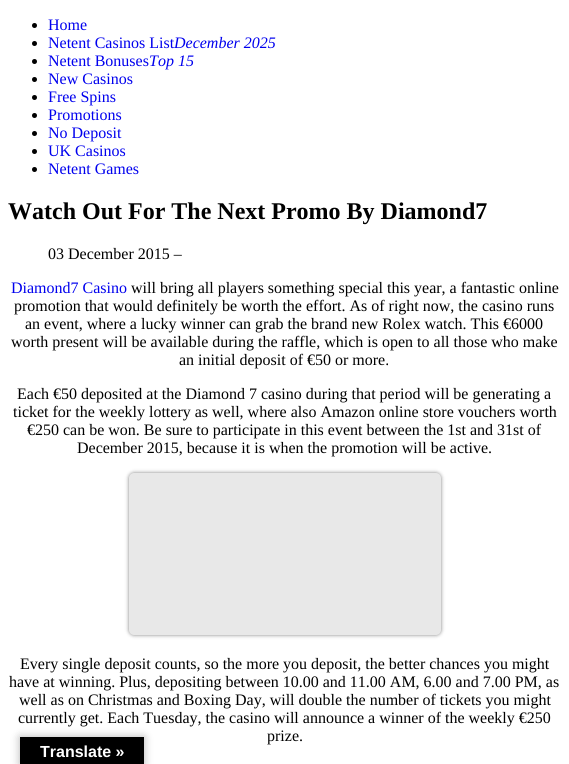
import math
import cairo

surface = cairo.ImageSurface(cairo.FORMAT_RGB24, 569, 764)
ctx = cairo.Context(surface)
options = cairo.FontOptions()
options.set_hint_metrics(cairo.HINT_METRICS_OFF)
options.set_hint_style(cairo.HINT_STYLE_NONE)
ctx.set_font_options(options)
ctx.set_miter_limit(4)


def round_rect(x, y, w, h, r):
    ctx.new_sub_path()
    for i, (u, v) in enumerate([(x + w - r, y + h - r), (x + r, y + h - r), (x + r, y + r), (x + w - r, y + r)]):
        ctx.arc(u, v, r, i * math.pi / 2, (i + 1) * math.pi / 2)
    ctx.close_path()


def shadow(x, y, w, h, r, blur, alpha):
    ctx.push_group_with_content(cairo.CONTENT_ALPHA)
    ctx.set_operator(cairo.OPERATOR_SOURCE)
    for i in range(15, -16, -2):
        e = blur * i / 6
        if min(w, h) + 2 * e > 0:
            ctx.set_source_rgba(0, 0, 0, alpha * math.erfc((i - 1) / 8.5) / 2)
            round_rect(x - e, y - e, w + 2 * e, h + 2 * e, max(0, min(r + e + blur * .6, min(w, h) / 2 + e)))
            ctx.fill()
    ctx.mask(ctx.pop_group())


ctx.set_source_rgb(1, 1, 1)
ctx.paint()
ctx.set_source_rgb(0, 0, 0)
ctx.arc(34.5, 25.5, 2.5, 0, 2 * math.pi)
ctx.fill()
ctx.select_font_face("Liberation Serif")
ctx.set_font_size(16)
ctx.set_source_rgb(0, 0, 0.933)
ctx.move_to(48, 30)
ctx.show_text("Home")
ctx.set_source_rgb(0, 0, 0)
ctx.new_path()
ctx.arc(34.5, 43.5, 2.5, 0, 2 * math.pi)
ctx.fill()
ctx.set_source_rgb(0, 0, 0.933)
ctx.move_to(48, 48)
ctx.show_text("Netent Casinos List")
ctx.select_font_face("Liberation Serif", cairo.FONT_SLANT_ITALIC)
ctx.move_to(174, 48)
ctx.show_text("December 2025")
ctx.set_source_rgb(0, 0, 0)
ctx.new_path()
ctx.arc(34.5, 61.5, 2.5, 0, 2 * math.pi)
ctx.fill()
ctx.select_font_face("Liberation Serif")
ctx.set_source_rgb(0, 0, 0.933)
ctx.move_to(48, 66)
ctx.show_text("Netent Bonuses")
ctx.select_font_face("Liberation Serif", cairo.FONT_SLANT_ITALIC)
ctx.move_to(149, 66)
ctx.show_text("Top 15")
ctx.set_source_rgb(0, 0, 0)
ctx.new_path()
ctx.arc(34.5, 79.5, 2.5, 0, 2 * math.pi)
ctx.fill()
ctx.select_font_face("Liberation Serif")
ctx.set_source_rgb(0, 0, 0.933)
ctx.move_to(48, 84)
ctx.show_text("New Casinos")
ctx.set_source_rgb(0, 0, 0)
ctx.new_path()
ctx.arc(34.5, 97.5, 2.5, 0, 2 * math.pi)
ctx.fill()
ctx.set_source_rgb(0, 0, 0.933)
ctx.move_to(48, 102)
ctx.show_text("Free Spins")
ctx.set_source_rgb(0, 0, 0)
ctx.new_path()
ctx.arc(34.5, 115.5, 2.5, 0, 2 * math.pi)
ctx.fill()
ctx.set_source_rgb(0, 0, 0.933)
ctx.move_to(48, 120)
ctx.show_text("Promotions")
ctx.set_source_rgb(0, 0, 0)
ctx.new_path()
ctx.arc(34.5, 133.5, 2.5, 0, 2 * math.pi)
ctx.fill()
ctx.set_source_rgb(0, 0, 0.933)
ctx.move_to(48, 138)
ctx.show_text("No Deposit")
ctx.set_source_rgb(0, 0, 0)
ctx.new_path()
ctx.arc(34.5, 151.5, 2.5, 0, 2 * math.pi)
ctx.fill()
ctx.set_source_rgb(0, 0, 0.933)
ctx.move_to(48, 156)
ctx.show_text("UK Casinos")
ctx.set_source_rgb(0, 0, 0)
ctx.new_path()
ctx.arc(34.5, 169.5, 2.5, 0, 2 * math.pi)
ctx.fill()
ctx.set_source_rgb(0, 0, 0.933)
ctx.move_to(48, 174)
ctx.show_text("Netent Games")
ctx.select_font_face("Liberation Serif", cairo.FONT_SLANT_NORMAL, cairo.FONT_WEIGHT_BOLD)
ctx.set_font_size(24)
ctx.set_source_rgb(0, 0, 0)
ctx.move_to(8, 219)
ctx.show_text("Watch Out For The Next Promo By Diamond7")
ctx.select_font_face("Liberation Serif")
ctx.set_font_size(16)
ctx.move_to(48, 259)
ctx.show_text("03 December 2015 –")
ctx.set_source_rgb(0, 0, 0.933)
ctx.move_to(11, 293)
ctx.show_text("Diamond7 Casino")
ctx.set_source_rgb(0, 0, 0)
ctx.move_to(131, 293)
ctx.show_text("will bring all players something special this year, a fantastic online")
ctx.move_to(14, 311)
ctx.show_text("promotion that would definitely be worth the effort. As of right now, the casino runs")
ctx.move_to(25, 329)
ctx.show_text("an event, where a lucky winner can grab the brand new Rolex watch. This €6000")
ctx.move_to(11, 347)
ctx.show_text("worth present will be available during the raffle, which is open to all those who make")
ctx.move_to(179, 365)
ctx.show_text("an initial deposit of €50 or more.")
ctx.move_to(17, 399)
ctx.show_text("Each €50 deposited at the Diamond 7 casino during that period will be generating a")
ctx.move_to(13, 417)
ctx.show_text("ticket for the weekly lottery as well, where also Amazon online store vouchers worth")
ctx.move_to(27, 435)
ctx.show_text("€250 can be won. Be sure to participate in this event between the 1st and 31st of")
ctx.move_to(77, 453)
ctx.show_text("December 2015, because it is when the promotion will be active.")
ctx.set_source_rgb(0, 0, 0)
shadow(129, 473, 312, 162, 5, 2, 0.5)
ctx.set_source_rgb(0.91, 0.91, 0.91)
round_rect(129, 473, 312, 162, 5)
ctx.fill()
ctx.set_source_rgb(0, 0, 0)
ctx.move_to(20, 669)
ctx.show_text("Every single deposit counts, so the more you deposit, the better chances you might")
ctx.move_to(9, 687)
ctx.show_text("have at winning. Plus, depositing between 10.00 and 11.00 AM, 6.00 and 7.00 PM, as")
ctx.move_to(19, 705)
ctx.show_text("well as on Christmas and Boxing Day, will double the number of tickets you might")
ctx.move_to(18, 723)
ctx.show_text("currently get. Each Tuesday, the casino will announce a winner of the weekly €250")
ctx.move_to(267, 741)
ctx.show_text("prize.")
ctx.set_source_rgb(0, 0, 0)
shadow(20, 737, 124, 27, 0, 4.5, 0.3)
ctx.set_source_rgb(0, 0, 0)
ctx.rectangle(20, 737, 124, 27)
ctx.fill()
ctx.select_font_face("Liberation Sans", cairo.FONT_SLANT_NORMAL, cairo.FONT_WEIGHT_BOLD)
ctx.set_source_rgb(1, 1, 1)
ctx.move_to(40, 757)
ctx.show_text("Translate »")
surface.write_to_png("page.png")
